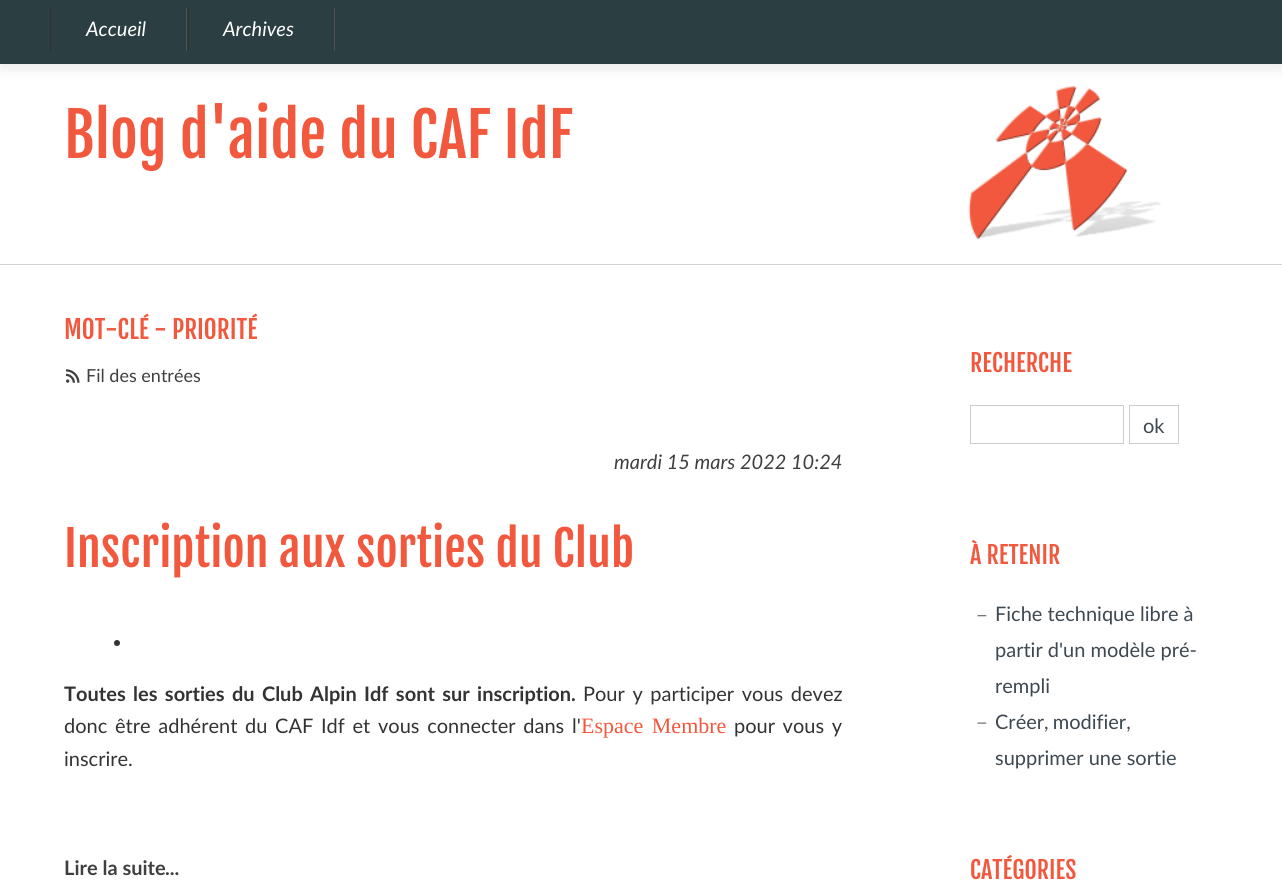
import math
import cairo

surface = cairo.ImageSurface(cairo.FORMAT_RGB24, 1282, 892)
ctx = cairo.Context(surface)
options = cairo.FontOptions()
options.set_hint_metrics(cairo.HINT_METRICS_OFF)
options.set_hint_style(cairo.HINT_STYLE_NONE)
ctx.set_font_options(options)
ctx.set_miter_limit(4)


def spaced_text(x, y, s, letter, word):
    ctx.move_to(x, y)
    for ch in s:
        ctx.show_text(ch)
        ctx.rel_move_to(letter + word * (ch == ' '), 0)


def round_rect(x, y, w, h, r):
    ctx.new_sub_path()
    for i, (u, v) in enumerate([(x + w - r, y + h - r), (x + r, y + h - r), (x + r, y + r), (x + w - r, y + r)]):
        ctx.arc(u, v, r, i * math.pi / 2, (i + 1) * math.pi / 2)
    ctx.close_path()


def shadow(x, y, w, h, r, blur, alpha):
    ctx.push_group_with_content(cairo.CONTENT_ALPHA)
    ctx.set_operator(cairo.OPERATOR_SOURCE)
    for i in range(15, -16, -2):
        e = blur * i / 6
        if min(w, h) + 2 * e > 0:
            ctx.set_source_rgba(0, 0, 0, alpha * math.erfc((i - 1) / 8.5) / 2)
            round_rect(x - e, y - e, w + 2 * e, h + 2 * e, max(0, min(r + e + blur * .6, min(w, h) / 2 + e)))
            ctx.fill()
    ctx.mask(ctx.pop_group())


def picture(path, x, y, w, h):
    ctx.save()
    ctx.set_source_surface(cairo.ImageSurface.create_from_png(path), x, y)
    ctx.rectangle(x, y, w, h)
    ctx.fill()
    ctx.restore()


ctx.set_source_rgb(1, 1, 1)
ctx.paint()
picture("img1.png", 968, 85, 193, 154)
ctx.set_source_rgb(0.922, 0.922, 0.922)
shadow(0, 6, 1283, 64, 0, 6, 1)
ctx.set_source_rgb(0.169, 0.243, 0.259)
ctx.rectangle(0, 0, 1282, 64)
ctx.fill()
ctx.set_source_rgb(0.314, 0.314, 0.314)
ctx.rectangle(186, 8, 1, 43)
ctx.fill()
ctx.set_source_rgb(0.188, 0.188, 0.188)
ctx.rectangle(50, 8, 1, 43)
ctx.fill()
ctx.select_font_face("Lato", cairo.FONT_SLANT_ITALIC)
ctx.set_font_size(20)
ctx.set_source_rgb(1, 1, 1)
ctx.move_to(86, 36)
ctx.show_text("Accueil")
ctx.set_source_rgb(0.314, 0.314, 0.314)
ctx.rectangle(334, 8, 1, 43)
ctx.fill()
ctx.set_source_rgb(0.188, 0.188, 0.188)
ctx.rectangle(188, 8, 1, 43)
ctx.fill()
ctx.set_source_rgb(1, 1, 1)
ctx.move_to(223, 36)
ctx.show_text("Archives")
ctx.set_source_rgb(0.824, 0.824, 0.824)
ctx.rectangle(0, 264, 1282, 1)
ctx.fill()
ctx.select_font_face("Fjalla One")
ctx.set_font_size(60)
ctx.set_source_rgb(0.949, 0.345, 0.243)
ctx.move_to(64, 158)
ctx.show_text("Blog d'aide du CAF IdF")
ctx.set_font_size(25.25)
ctx.move_to(64, 339)
ctx.show_text("MOT-CLÉ - PRIORITÉ")
picture("img2.png", 66, 369, 14, 14)
ctx.select_font_face("Lato")
ctx.set_font_size(18)
ctx.set_source_rgb(0.251, 0.251, 0.251)
ctx.move_to(86, 382)
ctx.show_text("Fil des entrées")
ctx.select_font_face("Lato", cairo.FONT_SLANT_ITALIC)
ctx.set_font_size(20)
ctx.move_to(614, 469)
ctx.show_text("mardi 15 mars 2022")
ctx.move_to(791, 469)
ctx.show_text("10:24")
ctx.select_font_face("Fjalla One")
ctx.set_font_size(48)
ctx.set_source_rgb(0.949, 0.345, 0.243)
ctx.move_to(64, 567)
ctx.show_text("Inscription aux sorties du Club")
ctx.set_source_rgb(0.2, 0.2, 0.2)
ctx.new_path()
ctx.arc(117, 643, 3, 0, 2 * math.pi)
ctx.fill()
ctx.select_font_face("Lato", cairo.FONT_SLANT_NORMAL, cairo.FONT_WEIGHT_BOLD)
ctx.set_font_size(20)
spaced_text(64, 701, "Toutes les sorties du Club Alpin Idf sont sur inscription.", 0, 2.5)
ctx.select_font_face("Lato")
spaced_text(583, 701, "Pour y participer vous devez", 0, 2.5)
spaced_text(64, 733, "donc être adhérent du CAF Idf et vous connecter dans l'", 0, 2.6)
ctx.select_font_face("Liberation Serif")
ctx.set_font_size(22)
ctx.set_source_rgb(0.949, 0.345, 0.243)
spaced_text(581, 733, "Espace Membre", 0, 3)
ctx.select_font_face("Lato")
ctx.set_font_size(20)
ctx.set_source_rgb(0.2, 0.2, 0.2)
spaced_text(734, 733, "pour vous y", 0, 2.5)
ctx.move_to(64, 766)
ctx.show_text("inscrire.")
ctx.select_font_face("Lato", cairo.FONT_SLANT_NORMAL, cairo.FONT_WEIGHT_BOLD)
ctx.set_source_rgb(0.251, 0.251, 0.251)
ctx.move_to(64, 875)
ctx.show_text("Lire la suite")
ctx.move_to(165, 875)
ctx.show_text("...")
ctx.select_font_face("Fjalla One")
ctx.set_font_size(24)
ctx.set_source_rgb(0.949, 0.345, 0.243)
ctx.move_to(970, 372)
ctx.show_text("RECHERCHE")
ctx.rectangle(970.5, 405.5, 153, 38)
ctx.set_source_rgb(0.8, 0.8, 0.8)
ctx.set_line_width(1)
ctx.stroke()
ctx.rectangle(1129.5, 405.5, 49, 38)
ctx.stroke()
ctx.select_font_face("Lato")
ctx.set_font_size(20)
ctx.set_source_rgb(0.243, 0.282, 0.314)
ctx.move_to(1143, 433)
ctx.show_text("ok")
ctx.select_font_face("Fjalla One")
ctx.set_font_size(24)
ctx.set_source_rgb(0.949, 0.345, 0.243)
ctx.move_to(970, 564)
ctx.show_text("À RETENIR")
picture("img3.png", 977, 615, 10, 2)
ctx.select_font_face("Lato")
ctx.set_font_size(20)
ctx.set_source_rgb(0.243, 0.282, 0.314)
ctx.move_to(995, 621)
ctx.show_text("Fiche technique libre à")
ctx.move_to(995, 657)
ctx.show_text("partir d'un modèle pré-")
ctx.move_to(995, 693)
ctx.show_text("rempli")
picture("img4.png", 977, 722, 10, 2)
spaced_text(995, 729, "Créer, modifier,", 0, -1)
ctx.move_to(995, 765)
ctx.show_text("supprimer une sortie")
ctx.select_font_face("Fjalla One")
ctx.set_font_size(24)
ctx.set_source_rgb(0.949, 0.345, 0.243)
ctx.move_to(970, 879)
ctx.show_text("CATÉGORIES")
surface.write_to_png("page.png")
